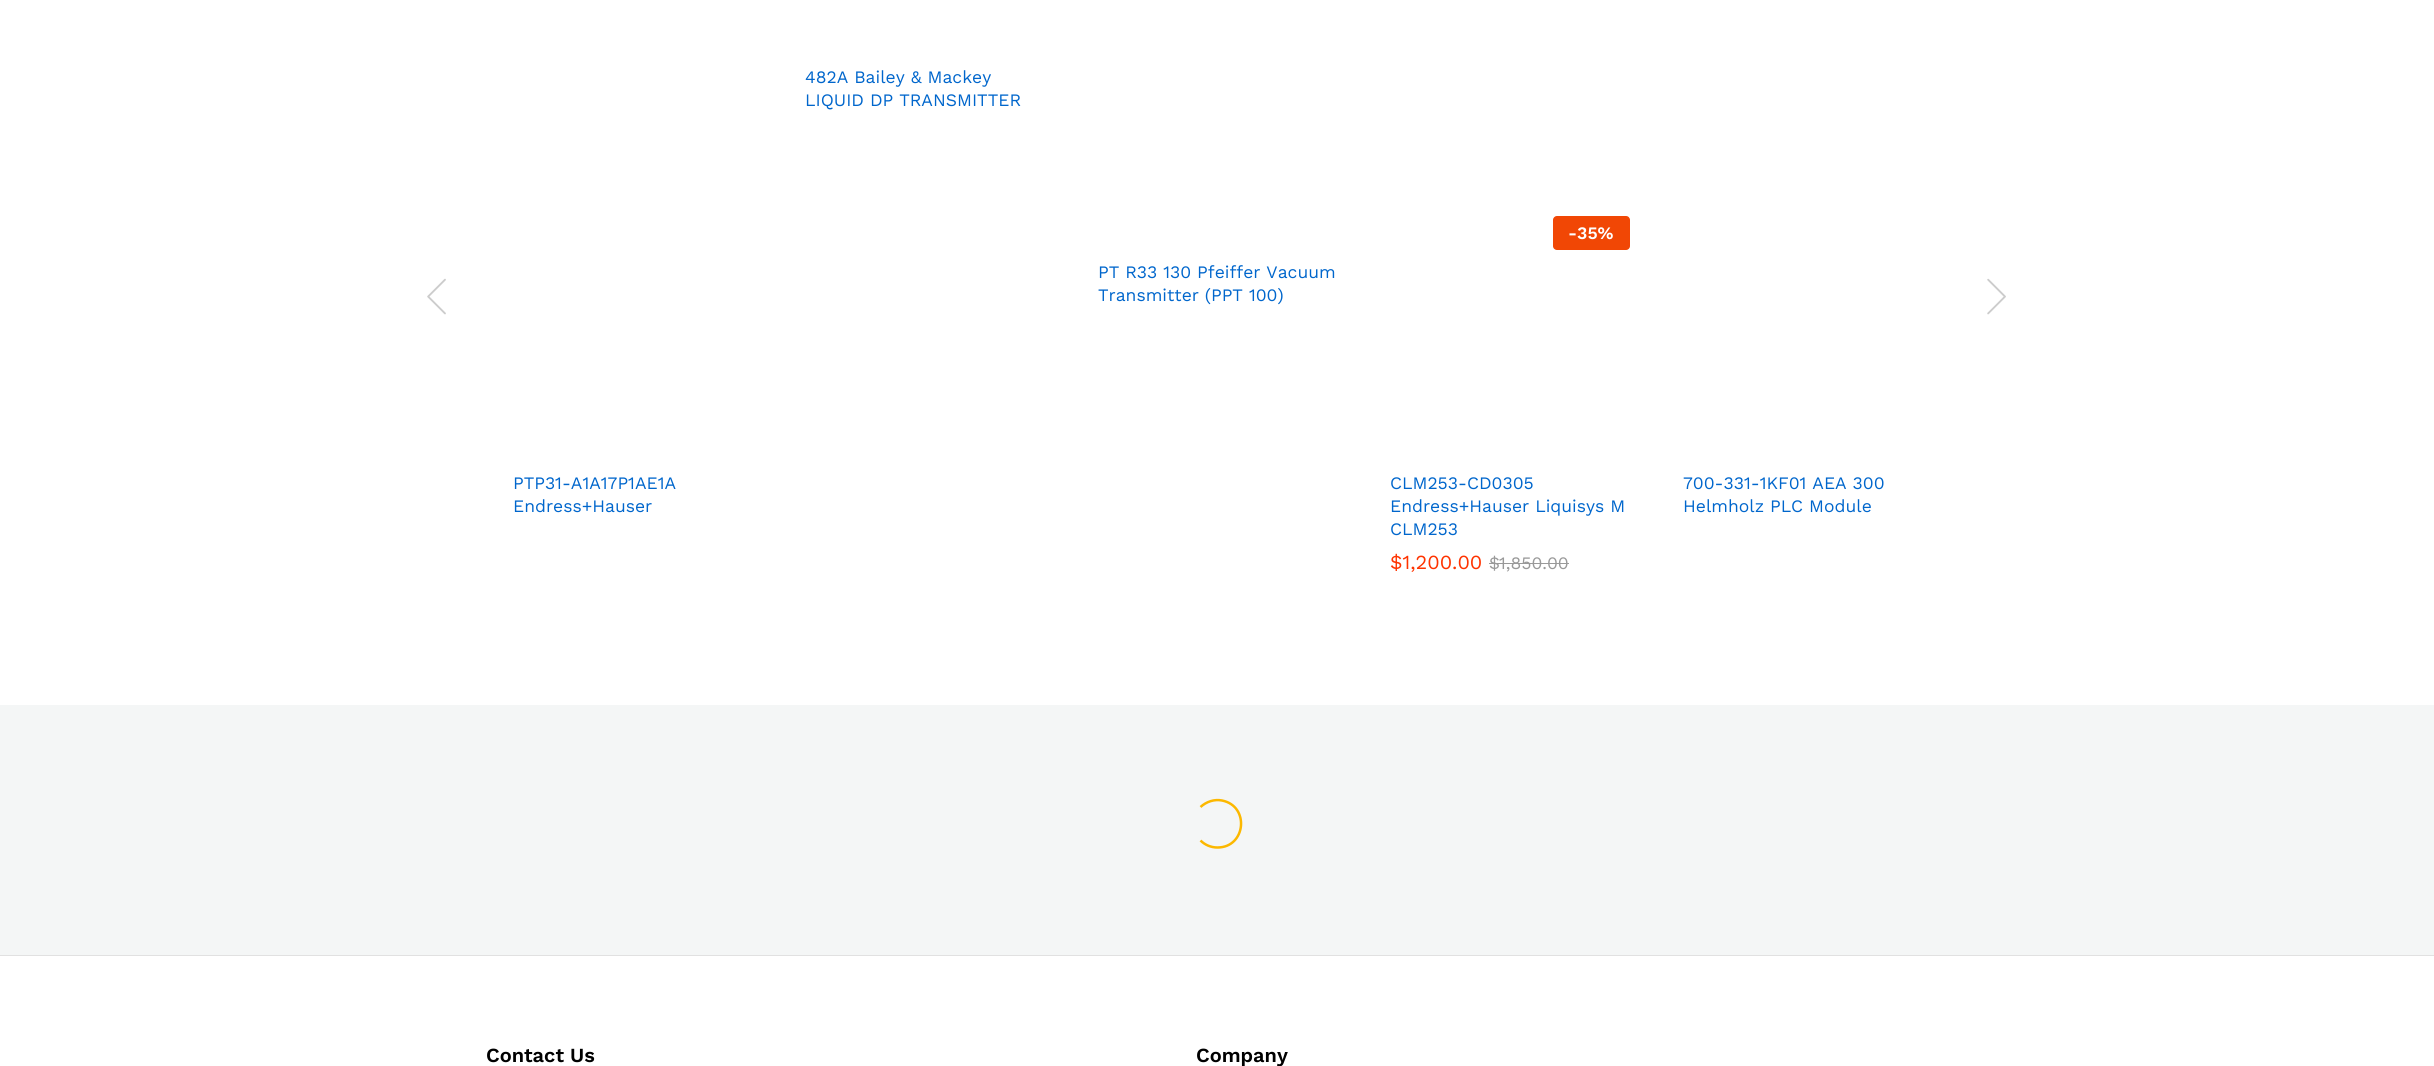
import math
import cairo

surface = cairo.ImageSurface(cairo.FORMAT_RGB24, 2434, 1066)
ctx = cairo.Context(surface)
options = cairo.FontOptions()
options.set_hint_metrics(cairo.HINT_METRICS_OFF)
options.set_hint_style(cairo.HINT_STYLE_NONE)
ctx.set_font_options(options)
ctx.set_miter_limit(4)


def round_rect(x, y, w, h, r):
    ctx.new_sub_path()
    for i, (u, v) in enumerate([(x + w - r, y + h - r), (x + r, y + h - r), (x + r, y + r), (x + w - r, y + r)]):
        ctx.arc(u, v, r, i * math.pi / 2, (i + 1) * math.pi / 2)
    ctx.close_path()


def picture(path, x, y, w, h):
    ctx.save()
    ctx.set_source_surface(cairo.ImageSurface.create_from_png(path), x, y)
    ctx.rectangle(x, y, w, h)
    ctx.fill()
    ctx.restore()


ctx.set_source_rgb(1, 1, 1)
ctx.paint()
picture("img1.png", 427, 278, 19, 37)
ctx.select_font_face("Work Sans")
ctx.set_font_size(17.5)
ctx.set_source_rgb(0, 0.4, 0.8)
ctx.move_to(805, 83)
ctx.show_text("482A Bailey & Mackey")
ctx.move_to(805, 106)
ctx.show_text("LIQUID DP TRANSMITTER")
ctx.move_to(1098, 278)
ctx.show_text("PT R33 130 Pfeiffer Vacuum")
ctx.move_to(1098, 301)
ctx.show_text("Transmitter (PPT 100)")
ctx.set_source_rgb(0.945, 0.278, 0.02)
round_rect(1553, 216, 77, 34, 4)
ctx.fill()
ctx.select_font_face("Work Sans SemiBold")
ctx.set_source_rgb(1, 1, 1)
ctx.move_to(1568, 239)
ctx.show_text("-35%")
ctx.select_font_face("Work Sans")
ctx.set_source_rgb(0, 0.4, 0.8)
ctx.move_to(1390, 489)
ctx.show_text("CLM253-CD0305")
ctx.move_to(1390, 512)
ctx.show_text("Endress+Hauser Liquisys M")
ctx.move_to(1390, 535)
ctx.show_text("CLM253")
ctx.set_font_size(20)
ctx.set_source_rgb(1, 0.2, 0)
ctx.move_to(1390, 569)
ctx.show_text("$1,200.00")
ctx.set_font_size(17.5)
ctx.set_source_rgb(0.6, 0.6, 0.6)
ctx.move_to(1489, 569)
ctx.show_text("$")
ctx.rectangle(1489, 563, 11, 1)
ctx.fill()
ctx.rectangle(1500, 563, 69, 1)
ctx.fill()
ctx.move_to(1499, 569)
ctx.show_text("1,850.00")
ctx.set_source_rgb(0, 0.4, 0.8)
ctx.move_to(513, 489)
ctx.show_text("PTP31-A1A17P1AE1A")
ctx.move_to(513, 512)
ctx.show_text("Endress+Hauser")
ctx.move_to(1683, 489)
ctx.show_text("700-331-1KF01 AEA 300")
ctx.move_to(1683, 512)
ctx.show_text("Helmholz PLC Module")
picture("img2.png", 1987, 278, 19, 37)
ctx.set_source_rgb(0.957, 0.961, 0.961)
ctx.rectangle(0, 705, 2434, 250)
ctx.fill()
ctx.new_path()
ctx.move_to(1200.5, 807)
ctx.curve_to(1206.5, 801.5, 1214.5, 799, 1222, 800.5)
ctx.curve_to(1250, 806, 1246, 847.5, 1217.5, 847.5)
ctx.curve_to(1211, 847.5, 1205, 845, 1200.5, 840.5)
ctx.set_source_rgb(0.988, 0.722, 0)
ctx.set_line_width(2.5)
ctx.stroke()
ctx.set_source_rgb(0.882, 0.882, 0.882)
ctx.rectangle(0, 955, 2434, 1)
ctx.fill()
ctx.select_font_face("Work Sans SemiBold")
ctx.set_font_size(20)
ctx.set_source_rgb(0, 0, 0)
ctx.move_to(486, 1062)
ctx.show_text("Contact Us")
ctx.move_to(1196, 1062)
ctx.show_text("Company")
surface.write_to_png("page.png")
